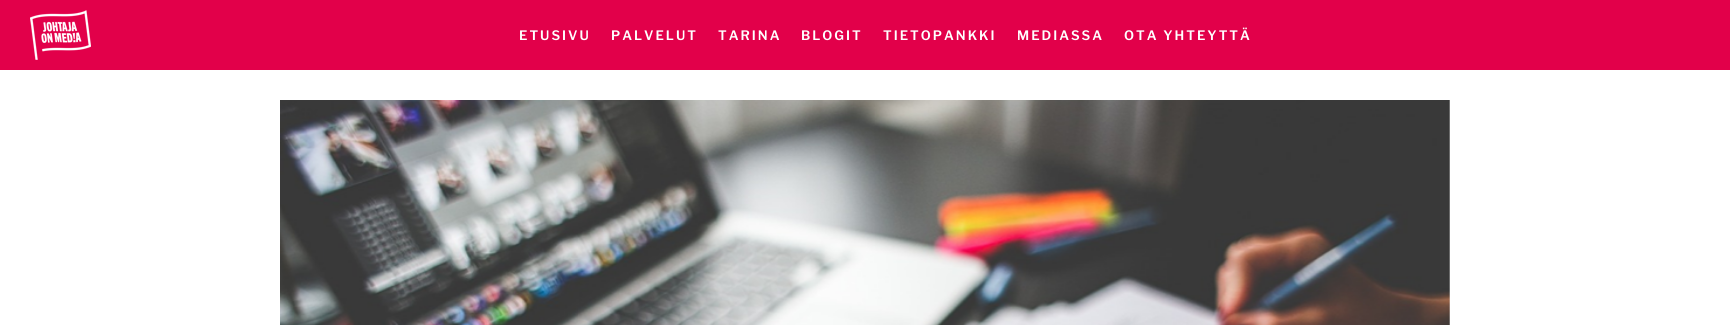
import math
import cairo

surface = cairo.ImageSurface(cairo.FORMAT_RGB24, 1730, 325)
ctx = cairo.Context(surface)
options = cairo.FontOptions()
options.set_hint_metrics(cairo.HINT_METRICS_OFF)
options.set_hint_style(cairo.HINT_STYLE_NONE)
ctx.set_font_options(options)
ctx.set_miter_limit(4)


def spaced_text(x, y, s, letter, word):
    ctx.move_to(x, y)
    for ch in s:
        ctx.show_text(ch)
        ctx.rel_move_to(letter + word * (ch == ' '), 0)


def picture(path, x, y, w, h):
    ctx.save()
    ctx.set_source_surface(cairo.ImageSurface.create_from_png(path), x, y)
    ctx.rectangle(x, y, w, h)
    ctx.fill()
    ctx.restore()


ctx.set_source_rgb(1, 1, 1)
ctx.paint()
ctx.set_source_rgb(0.886, 0, 0.29)
ctx.rectangle(0, 0, 1730, 70)
ctx.fill()
picture("img1.png", 30, 10, 61, 50)
ctx.select_font_face("Libre Franklin SemiBold")
ctx.set_font_size(13)
ctx.set_source_rgb(1, 1, 1)
spaced_text(519, 40, "ETUSIVU", 2, 0)
spaced_text(611, 40, "PALVELUT", 2, 0)
spaced_text(718, 40, "TARINA", 2, 0)
spaced_text(801, 40, "BLOGIT", 2, 0)
spaced_text(883, 40, "TIETOPANKKI", 2, 0)
spaced_text(1017, 40, "MEDIASSA", 2, 0)
spaced_text(1124, 40, "OTA YHTEYTTÄ", 2, 0)
picture("img2.png", 280, 100, 1170, 225)
surface.write_to_png("page.png")
